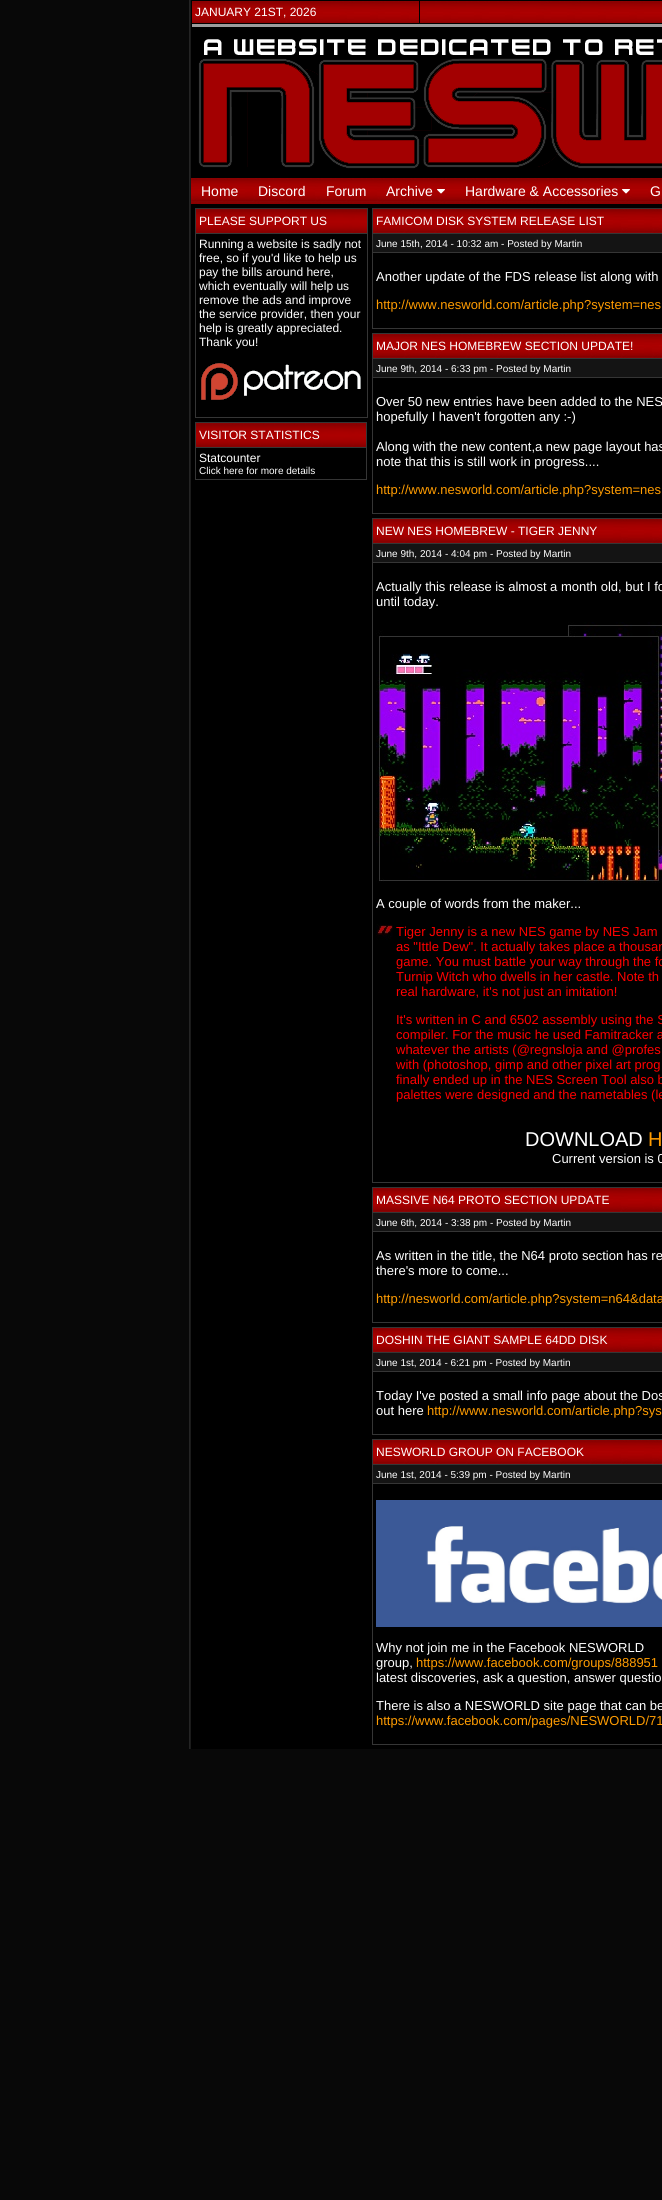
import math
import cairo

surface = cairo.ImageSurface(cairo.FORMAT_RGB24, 662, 2200)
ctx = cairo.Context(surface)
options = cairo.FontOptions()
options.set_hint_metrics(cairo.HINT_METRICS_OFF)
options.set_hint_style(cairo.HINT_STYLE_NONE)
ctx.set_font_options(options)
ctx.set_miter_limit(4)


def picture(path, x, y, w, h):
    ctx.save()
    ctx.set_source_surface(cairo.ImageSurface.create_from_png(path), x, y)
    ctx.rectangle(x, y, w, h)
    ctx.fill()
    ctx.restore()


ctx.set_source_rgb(0.035, 0.035, 0.035)
ctx.paint()
picture("img1.png", 189, 0, 2, 1749)
ctx.set_source_rgb(0, 0, 0)
ctx.rectangle(191, 0, 471, 1749)
ctx.fill()
picture("img2.png", 192, 1, 227, 22)
ctx.select_font_face("Liberation Sans")
ctx.set_font_size(12)
ctx.set_source_rgb(1, 1, 1)
ctx.move_to(195, 16)
ctx.show_text("JANUARY 21ST, 2026")
picture("img3.png", 420, 1, 242, 22)
ctx.set_source_rgb(0.612, 0.612, 0.612)
ctx.rectangle(192, 24, 470, 3)
ctx.fill()
picture("img4.png", 198, 39, 464, 130)
picture("img5.png", 191, 178, 471, 26)
ctx.set_font_size(14)
ctx.set_source_rgb(1, 1, 1)
ctx.move_to(201, 196)
ctx.show_text("Home")
ctx.move_to(258, 196)
ctx.show_text("Discord")
ctx.move_to(326, 196)
ctx.show_text("Forum")
ctx.move_to(386, 196)
ctx.show_text("Archive")
picture("img6.png", 437, 189, 8, 5)
ctx.move_to(465, 196)
ctx.show_text("Hardware & Accessories")
picture("img7.png", 622, 189, 8, 5)
ctx.move_to(650, 196)
ctx.show_text("G")
picture("img8.png", 196, 209, 171, 24)
ctx.set_source_rgb(0.208, 0.208, 0.208)
ctx.rectangle(195, 208, 173, 1)
ctx.fill()
ctx.rectangle(195, 233, 173, 1)
ctx.fill()
ctx.rectangle(367, 233, 1, 185)
ctx.fill()
ctx.rectangle(367, 208, 1, 26)
ctx.fill()
ctx.rectangle(195, 417, 173, 1)
ctx.fill()
ctx.rectangle(195, 233, 1, 185)
ctx.fill()
ctx.rectangle(195, 208, 1, 26)
ctx.fill()
ctx.set_font_size(12)
ctx.set_source_rgb(1, 1, 1)
ctx.move_to(199, 225)
ctx.show_text("PLEASE SUPPORT US")
ctx.move_to(199, 248)
ctx.show_text("Running a website is sadly not")
ctx.move_to(199, 262)
ctx.show_text("free, so if you'd like to help us")
ctx.move_to(199, 276)
ctx.show_text("pay the bills around here,")
ctx.move_to(199, 290)
ctx.show_text("which eventually will help us")
ctx.move_to(199, 304)
ctx.show_text("remove the ads and improve")
ctx.move_to(199, 318)
ctx.show_text("the service provider, then your")
ctx.move_to(199, 332)
ctx.show_text("help is greatly appreciated.")
ctx.move_to(199, 346)
ctx.show_text("Thank you!")
picture("img9.png", 201, 363, 160, 37)
picture("img10.png", 196, 423, 170, 24)
ctx.set_source_rgb(0.208, 0.208, 0.208)
ctx.rectangle(195, 422, 172, 1)
ctx.fill()
ctx.rectangle(195, 447, 172, 1)
ctx.fill()
ctx.rectangle(366, 447, 1, 33)
ctx.fill()
ctx.rectangle(366, 422, 1, 26)
ctx.fill()
ctx.rectangle(195, 479, 172, 1)
ctx.fill()
ctx.rectangle(195, 447, 1, 33)
ctx.fill()
ctx.rectangle(195, 422, 1, 26)
ctx.fill()
ctx.set_source_rgb(1, 1, 1)
ctx.move_to(199, 439)
ctx.show_text("VISITOR STATISTICS")
ctx.move_to(199, 462)
ctx.show_text("Statcounter")
ctx.set_font_size(10)
ctx.move_to(199, 474)
ctx.show_text("Click here for more details")
ctx.set_source_rgb(0.208, 0.208, 0.208)
ctx.rectangle(372, 208, 290, 121)
ctx.fill()
picture("img11.png", 373, 209, 289, 24)
ctx.set_font_size(12)
ctx.set_source_rgb(1, 1, 1)
ctx.move_to(376, 225)
ctx.show_text("FAMICOM DISK SYSTEM RELEASE LIST")
ctx.set_source_rgb(0.082, 0.082, 0.082)
ctx.rectangle(373, 234, 289, 18)
ctx.fill()
ctx.set_font_size(10)
ctx.set_source_rgb(1, 1, 1)
ctx.move_to(376, 247)
ctx.show_text("June 15th, 2014 - 10:32 am - Posted by Martin")
ctx.set_source_rgb(0, 0, 0)
ctx.rectangle(373, 253, 289, 75)
ctx.fill()
ctx.set_font_size(13)
ctx.set_source_rgb(1, 1, 1)
ctx.move_to(376, 281)
ctx.show_text("Another update of the FDS release list along with")
ctx.set_source_rgb(1, 0.612, 0.004)
ctx.move_to(376, 309)
ctx.show_text("http://www.nesworld.com/article.php?system=nes")
ctx.set_source_rgb(0.208, 0.208, 0.208)
ctx.rectangle(372, 333, 290, 181)
ctx.fill()
picture("img11.png", 373, 334, 289, 24)
ctx.set_font_size(12)
ctx.set_source_rgb(1, 1, 1)
ctx.move_to(376, 350)
ctx.show_text("MAJOR NES HOMEBREW SECTION UPDATE!")
ctx.set_source_rgb(0.082, 0.082, 0.082)
ctx.rectangle(373, 359, 289, 18)
ctx.fill()
ctx.set_font_size(10)
ctx.set_source_rgb(1, 1, 1)
ctx.move_to(376, 372)
ctx.show_text("June 9th, 2014 - 6:33 pm - Posted by Martin")
ctx.set_source_rgb(0, 0, 0)
ctx.rectangle(373, 378, 289, 135)
ctx.fill()
ctx.set_font_size(13)
ctx.set_source_rgb(1, 1, 1)
ctx.move_to(376, 406)
ctx.show_text("Over 50 new entries have been added to the NES")
ctx.move_to(376, 421)
ctx.show_text("hopefully I haven't forgotten any :-)")
ctx.move_to(376, 451)
ctx.show_text("Along with the new content,a new page layout has")
ctx.move_to(376, 466)
ctx.show_text("note that this is still work in progress....")
ctx.set_source_rgb(1, 0.612, 0.004)
ctx.move_to(376, 494)
ctx.show_text("http://www.nesworld.com/article.php?system=nes")
ctx.set_source_rgb(0.208, 0.208, 0.208)
ctx.rectangle(372, 518, 290, 665)
ctx.fill()
picture("img11.png", 373, 519, 289, 24)
ctx.set_font_size(12)
ctx.set_source_rgb(1, 1, 1)
ctx.move_to(376, 535)
ctx.show_text("NEW NES HOMEBREW - TIGER JENNY")
ctx.set_source_rgb(0.082, 0.082, 0.082)
ctx.rectangle(373, 544, 289, 18)
ctx.fill()
ctx.set_font_size(10)
ctx.set_source_rgb(1, 1, 1)
ctx.move_to(376, 557)
ctx.show_text("June 9th, 2014 - 4:04 pm - Posted by Martin")
ctx.set_source_rgb(0, 0, 0)
ctx.rectangle(373, 563, 289, 619)
ctx.fill()
ctx.set_font_size(13)
ctx.set_source_rgb(1, 1, 1)
ctx.move_to(376, 591)
ctx.show_text("Actually this release is almost a month old, but I fo")
ctx.move_to(376, 606)
ctx.show_text("until today.")
picture("img12.png", 376, 622, 286, 261)
ctx.move_to(376, 908)
ctx.show_text("A couple of words from the maker...")
picture("img13.png", 376, 924, 17, 16)
ctx.set_source_rgb(1, 0, 0)
ctx.move_to(396, 936)
ctx.show_text("Tiger Jenny is a new NES game by NES Jam")
ctx.move_to(396, 951)
ctx.show_text("as \"Ittle Dew\". It actually takes place a thousan")
ctx.move_to(396, 966)
ctx.show_text("game. You must battle your way through the fo")
ctx.move_to(396, 981)
ctx.show_text("Turnip Witch who dwells in her castle. Note th")
ctx.move_to(396, 996)
ctx.show_text("real hardware, it's not just an imitation!")
ctx.move_to(396, 1024)
ctx.show_text("It's written in C and 6502 assembly using the S")
ctx.move_to(396, 1039)
ctx.show_text("compiler. For the music he used Famitracker a")
ctx.move_to(396, 1054)
ctx.show_text("whatever the artists (@regnsloja and @profes")
ctx.move_to(396, 1069)
ctx.show_text("with (photoshop, gimp and other pixel art prog")
ctx.move_to(396, 1084)
ctx.show_text("finally ended up in the NES Screen Tool also b")
ctx.move_to(396, 1099)
ctx.show_text("palettes were designed and the nametables (le")
ctx.set_font_size(20)
ctx.set_source_rgb(1, 1, 1)
ctx.move_to(525, 1146)
ctx.show_text("DOWNLOAD")
ctx.set_source_rgb(1, 0.612, 0.004)
ctx.move_to(648, 1146)
ctx.show_text("H")
ctx.set_font_size(13)
ctx.set_source_rgb(1, 1, 1)
ctx.move_to(552, 1163)
ctx.show_text("Current version is 0")
ctx.set_source_rgb(0.208, 0.208, 0.208)
ctx.rectangle(372, 1187, 290, 136)
ctx.fill()
picture("img11.png", 373, 1188, 289, 24)
ctx.set_font_size(12)
ctx.set_source_rgb(1, 1, 1)
ctx.move_to(376, 1204)
ctx.show_text("MASSIVE N64 PROTO SECTION UPDATE")
ctx.set_source_rgb(0.082, 0.082, 0.082)
ctx.rectangle(373, 1213, 289, 18)
ctx.fill()
ctx.set_font_size(10)
ctx.set_source_rgb(1, 1, 1)
ctx.move_to(376, 1226)
ctx.show_text("June 6th, 2014 - 3:38 pm - Posted by Martin")
ctx.set_source_rgb(0, 0, 0)
ctx.rectangle(373, 1232, 289, 90)
ctx.fill()
ctx.set_font_size(13)
ctx.set_source_rgb(1, 1, 1)
ctx.move_to(376, 1260)
ctx.show_text("As written in the title, the N64 proto section has re")
ctx.move_to(376, 1275)
ctx.show_text("there's more to come...")
ctx.set_source_rgb(1, 0.612, 0.004)
ctx.move_to(376, 1303)
ctx.show_text("http://nesworld.com/article.php?system=n64&data")
ctx.set_source_rgb(0.208, 0.208, 0.208)
ctx.rectangle(372, 1327, 290, 108)
ctx.fill()
picture("img11.png", 373, 1328, 289, 24)
ctx.set_font_size(12)
ctx.set_source_rgb(1, 1, 1)
ctx.move_to(376, 1344)
ctx.show_text("DOSHIN THE GIANT SAMPLE 64DD DISK")
ctx.set_source_rgb(0.082, 0.082, 0.082)
ctx.rectangle(373, 1353, 289, 18)
ctx.fill()
ctx.set_font_size(10)
ctx.set_source_rgb(1, 1, 1)
ctx.move_to(376, 1366)
ctx.show_text("June 1st, 2014 - 6:21 pm - Posted by Martin")
ctx.set_source_rgb(0, 0, 0)
ctx.rectangle(373, 1372, 289, 62)
ctx.fill()
ctx.set_font_size(13)
ctx.set_source_rgb(1, 1, 1)
ctx.move_to(376, 1400)
ctx.show_text("Today I've posted a small info page about the Dos")
ctx.move_to(376, 1415)
ctx.show_text("out here")
ctx.set_source_rgb(1, 0.612, 0.004)
ctx.move_to(427, 1415)
ctx.show_text("http://www.nesworld.com/article.php?sys")
ctx.set_source_rgb(0.208, 0.208, 0.208)
ctx.rectangle(372, 1439, 290, 306)
ctx.fill()
picture("img11.png", 373, 1440, 289, 24)
ctx.set_font_size(12)
ctx.set_source_rgb(1, 1, 1)
ctx.move_to(376, 1456)
ctx.show_text("NESWORLD GROUP ON FACEBOOK")
ctx.set_source_rgb(0.082, 0.082, 0.082)
ctx.rectangle(373, 1465, 289, 18)
ctx.fill()
ctx.set_font_size(10)
ctx.set_source_rgb(1, 1, 1)
ctx.move_to(376, 1478)
ctx.show_text("June 1st, 2014 - 5:39 pm - Posted by Martin")
ctx.set_source_rgb(0, 0, 0)
ctx.rectangle(373, 1484, 289, 260)
ctx.fill()
picture("img14.png", 376, 1500, 286, 127)
ctx.set_font_size(13)
ctx.set_source_rgb(1, 1, 1)
ctx.move_to(376, 1652)
ctx.show_text("Why not join me in the Facebook NESWORLD")
ctx.move_to(376, 1667)
ctx.show_text("group,")
ctx.set_source_rgb(1, 0.612, 0.004)
ctx.move_to(416, 1667)
ctx.show_text("https://www.facebook.com/groups/888951")
ctx.set_source_rgb(1, 1, 1)
ctx.move_to(376, 1682)
ctx.show_text("latest discoveries, ask a question, answer questio")
ctx.move_to(376, 1710)
ctx.show_text("There is also a NESWORLD site page that can be")
ctx.set_source_rgb(1, 0.612, 0.004)
ctx.move_to(376, 1725)
ctx.show_text("https://www.facebook.com/pages/NESWORLD/71")
surface.write_to_png("page.png")
